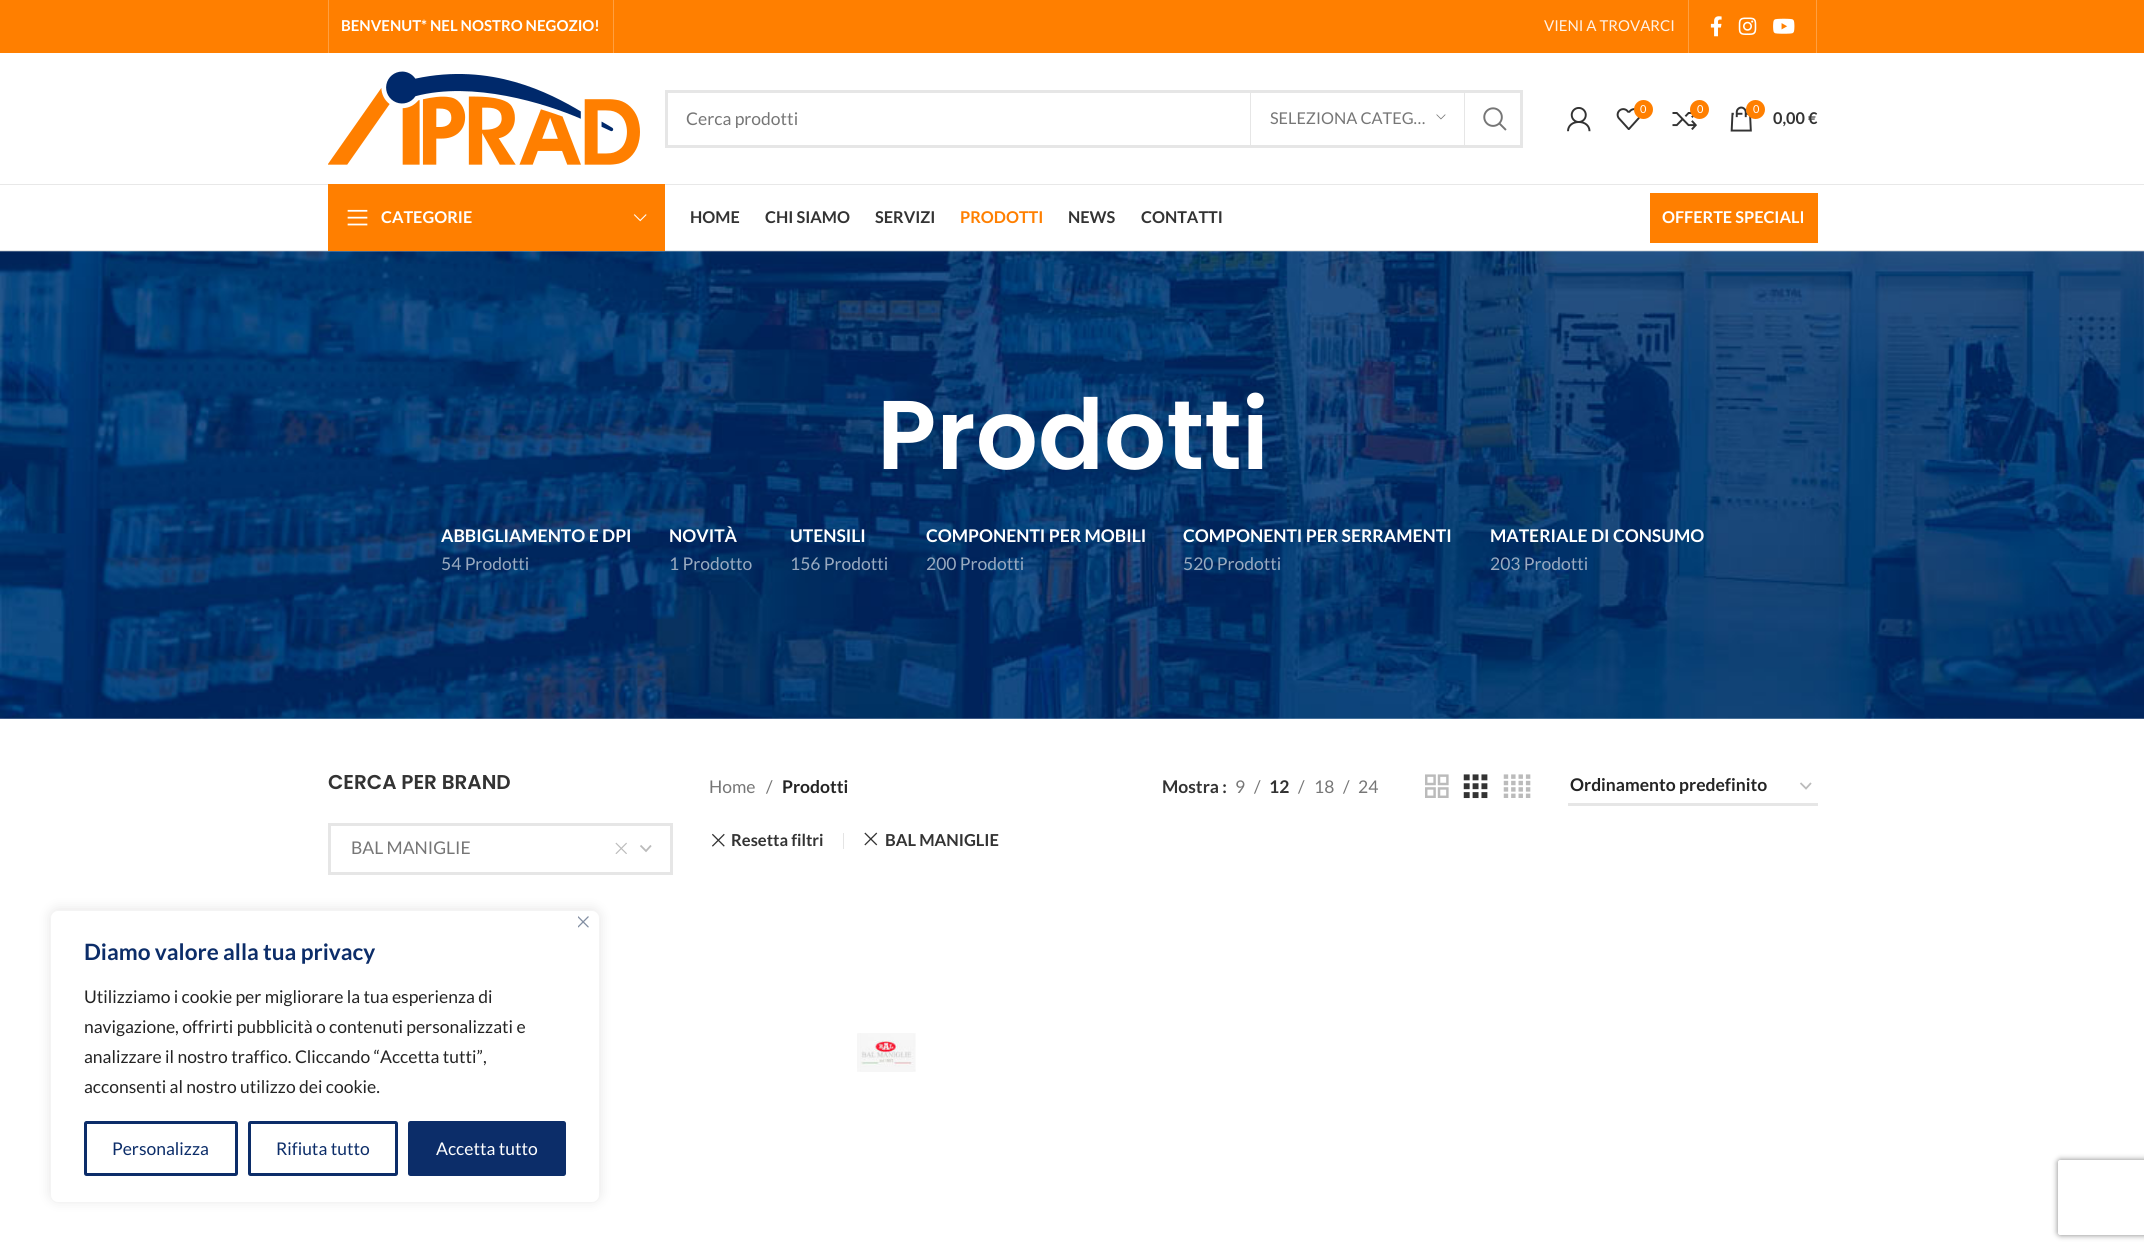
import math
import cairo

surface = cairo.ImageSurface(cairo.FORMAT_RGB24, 2144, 1252)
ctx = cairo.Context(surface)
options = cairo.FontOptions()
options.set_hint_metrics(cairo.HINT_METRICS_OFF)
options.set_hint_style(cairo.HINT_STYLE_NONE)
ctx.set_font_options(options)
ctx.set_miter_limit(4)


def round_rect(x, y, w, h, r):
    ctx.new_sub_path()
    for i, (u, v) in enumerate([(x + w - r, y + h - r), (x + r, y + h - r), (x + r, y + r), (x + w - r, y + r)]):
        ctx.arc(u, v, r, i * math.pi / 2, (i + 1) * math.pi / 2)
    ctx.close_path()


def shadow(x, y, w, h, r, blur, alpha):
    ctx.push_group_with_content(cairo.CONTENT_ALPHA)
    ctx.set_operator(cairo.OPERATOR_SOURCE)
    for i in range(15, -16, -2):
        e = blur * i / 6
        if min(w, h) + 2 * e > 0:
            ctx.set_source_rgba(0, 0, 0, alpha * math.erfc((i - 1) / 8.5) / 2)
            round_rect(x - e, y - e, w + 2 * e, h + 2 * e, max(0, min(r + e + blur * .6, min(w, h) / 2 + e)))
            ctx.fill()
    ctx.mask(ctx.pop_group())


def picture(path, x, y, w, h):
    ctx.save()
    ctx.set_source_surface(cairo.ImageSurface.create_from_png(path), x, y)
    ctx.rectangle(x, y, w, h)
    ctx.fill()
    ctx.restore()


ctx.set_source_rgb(1, 1, 1)
ctx.paint()
ctx.set_source_rgb(1, 0.498, 0)
ctx.rectangle(0, 0, 2144, 53)
ctx.fill()
ctx.set_source_rgb(1, 0.624, 0.251)
ctx.rectangle(328, 0, 1, 53)
ctx.fill()
ctx.select_font_face("Lato", cairo.FONT_SLANT_NORMAL, cairo.FONT_WEIGHT_BOLD)
ctx.set_font_size(15)
ctx.set_source_rgb(1, 1, 1)
ctx.move_to(341, 31)
ctx.show_text("BENVENUT* NEL NOSTRO NEGOZIO!")
ctx.set_source_rgb(1, 0.624, 0.251)
ctx.rectangle(613, 0, 1, 53)
ctx.fill()
ctx.select_font_face("Lato")
ctx.set_source_rgb(1, 0.949, 0.902)
ctx.move_to(1544, 31)
ctx.show_text("VIENI A TROVARCI")
ctx.set_source_rgb(1, 0.624, 0.251)
ctx.rectangle(1688, 0, 1, 53)
ctx.fill()
picture("img1.png", 1710, 16, 12, 21)
picture("img2.png", 1738, 17, 19, 18)
picture("img3.png", 1773, 18, 22, 16)
ctx.rectangle(1816, 0, 1, 53)
ctx.fill()
ctx.set_source_rgb(0.91, 0.91, 0.91)
ctx.rectangle(0, 184, 2144, 1)
ctx.fill()
picture("img4.png", 328, 71, 312, 94)
ctx.rectangle(666.5, 91.5, 855, 55)
ctx.set_source_rgb(0.902, 0.902, 0.902)
ctx.set_line_width(3)
ctx.stroke()
ctx.set_font_size(17.5)
ctx.set_source_rgb(0.463, 0.463, 0.463)
ctx.move_to(686, 125)
ctx.show_text("Cerca prodotti")
ctx.set_source_rgb(0.902, 0.902, 0.902)
ctx.rectangle(1464, 93, 1, 52)
ctx.fill()
ctx.rectangle(1250, 93, 1, 52)
ctx.fill()
ctx.set_font_size(16.25)
ctx.set_source_rgb(0.463, 0.463, 0.463)
ctx.move_to(1270, 124)
ctx.show_text("SELEZIONA CATEG…")
picture("img5.png", 1436, 114, 10, 6)
picture("img6.png", 1483, 107, 24, 24)
picture("img7.png", 1567, 107, 24, 25)
picture("img8.png", 1616, 108, 24, 22)
ctx.set_source_rgb(1, 0.498, 0)
ctx.arc(1643.5, 109.5, 9.5, 0, 2 * math.pi)
ctx.fill()
ctx.set_font_size(11)
ctx.set_source_rgb(1, 1, 1)
ctx.move_to(1640, 113)
ctx.show_text("0")
picture("img9.png", 1672, 112, 25, 18)
ctx.set_source_rgb(1, 0.498, 0)
ctx.arc(1699.5, 109.5, 9.5, 0, 2 * math.pi)
ctx.fill()
ctx.set_source_rgb(1, 1, 1)
ctx.move_to(1697, 113)
ctx.show_text("0")
picture("img10.png", 1730, 106, 22, 26)
ctx.set_source_rgb(1, 0.498, 0)
ctx.arc(1755.5, 109.5, 9.5, 0, 2 * math.pi)
ctx.fill()
ctx.set_source_rgb(1, 1, 1)
ctx.move_to(1753, 113)
ctx.show_text("0")
ctx.select_font_face("Lato", cairo.FONT_SLANT_NORMAL, cairo.FONT_WEIGHT_BOLD)
ctx.set_font_size(16.25)
ctx.set_source_rgb(0.2, 0.2, 0.2)
ctx.move_to(1773, 124)
ctx.show_text("0,00 €")
ctx.set_source_rgb(0.91, 0.91, 0.91)
ctx.rectangle(0, 250, 2144, 1)
ctx.fill()
ctx.set_source_rgb(1, 0.498, 0)
ctx.rectangle(328, 184, 337, 67)
ctx.fill()
picture("img11.png", 347, 209, 21, 17)
ctx.set_source_rgb(1, 1, 1)
ctx.move_to(381, 223)
ctx.show_text("CATEGORIE")
picture("img12.png", 633, 214, 14, 8)
ctx.set_source_rgb(0.2, 0.2, 0.2)
ctx.move_to(690, 223)
ctx.show_text("HOME")
ctx.move_to(765, 223)
ctx.show_text("CHI SIAMO")
ctx.move_to(875, 223)
ctx.show_text("SERVIZI")
ctx.set_source_rgb(1, 0.498, 0)
ctx.move_to(960, 223)
ctx.show_text("PRODOTTI")
ctx.set_source_rgb(0.2, 0.2, 0.2)
ctx.move_to(1068, 223)
ctx.show_text("NEWS")
ctx.move_to(1141, 223)
ctx.show_text("CONTATTI")
ctx.set_source_rgb(1, 0.498, 0)
ctx.rectangle(1650, 193, 168, 50)
ctx.fill()
ctx.set_source_rgb(1, 1, 1)
ctx.move_to(1662, 223)
ctx.show_text("OFFERTE SPECIALI")
picture("img13.png", 0, 251, 2144, 468)
ctx.select_font_face("Poppins SemiBold")
ctx.set_font_size(97.5)
ctx.move_to(877, 469)
ctx.show_text("Prodotti")
ctx.select_font_face("Lato", cairo.FONT_SLANT_NORMAL, cairo.FONT_WEIGHT_BOLD)
ctx.set_font_size(17.5)
ctx.move_to(441, 542)
ctx.show_text("ABBIGLIAMENTO E DPI")
ctx.select_font_face("Lato")
ctx.set_source_rgb(0.6, 0.667, 0.753)
ctx.move_to(441, 570)
ctx.show_text("54 Prodotti")
ctx.select_font_face("Lato", cairo.FONT_SLANT_NORMAL, cairo.FONT_WEIGHT_BOLD)
ctx.set_source_rgb(1, 1, 1)
ctx.move_to(669, 542)
ctx.show_text("NOVITÀ")
ctx.select_font_face("Lato")
ctx.set_source_rgb(0.6, 0.667, 0.753)
ctx.move_to(669, 570)
ctx.show_text("1 Prodotto")
ctx.select_font_face("Lato", cairo.FONT_SLANT_NORMAL, cairo.FONT_WEIGHT_BOLD)
ctx.set_source_rgb(1, 1, 1)
ctx.move_to(790, 542)
ctx.show_text("UTENSILI")
ctx.select_font_face("Lato")
ctx.set_source_rgb(0.6, 0.667, 0.753)
ctx.move_to(790, 570)
ctx.show_text("156 Prodotti")
ctx.select_font_face("Lato", cairo.FONT_SLANT_NORMAL, cairo.FONT_WEIGHT_BOLD)
ctx.set_source_rgb(1, 1, 1)
ctx.move_to(926, 542)
ctx.show_text("COMPONENTI PER MOBILI")
ctx.select_font_face("Lato")
ctx.set_source_rgb(0.6, 0.667, 0.753)
ctx.move_to(926, 570)
ctx.show_text("200 Prodotti")
ctx.select_font_face("Lato", cairo.FONT_SLANT_NORMAL, cairo.FONT_WEIGHT_BOLD)
ctx.set_source_rgb(1, 1, 1)
ctx.move_to(1183, 542)
ctx.show_text("COMPONENTI PER SERRAMENTI")
ctx.select_font_face("Lato")
ctx.set_source_rgb(0.6, 0.667, 0.753)
ctx.move_to(1183, 570)
ctx.show_text("520 Prodotti")
ctx.select_font_face("Lato", cairo.FONT_SLANT_NORMAL, cairo.FONT_WEIGHT_BOLD)
ctx.set_source_rgb(1, 1, 1)
ctx.move_to(1490, 542)
ctx.show_text("MATERIALE DI CONSUMO")
ctx.select_font_face("Lato")
ctx.set_source_rgb(0.6, 0.667, 0.753)
ctx.move_to(1490, 570)
ctx.show_text("203 Prodotti")
ctx.select_font_face("Poppins SemiBold")
ctx.set_font_size(20)
ctx.set_source_rgb(0.2, 0.2, 0.2)
ctx.move_to(328, 789)
ctx.show_text("CERCA PER BRAND")
ctx.rectangle(329.5, 824.5, 342, 49)
ctx.set_source_rgb(0.902, 0.902, 0.902)
ctx.stroke()
ctx.select_font_face("Lato")
ctx.set_font_size(17.5)
ctx.set_source_rgb(0.463, 0.463, 0.463)
ctx.move_to(351, 854)
ctx.show_text("BAL MANIGLIE")
picture("img14.png", 615, 842, 12, 12)
ctx.new_path()
ctx.move_to(640.5, 845.5)
ctx.line_to(646, 851)
ctx.line_to(651, 845.5)
ctx.set_source_rgb(0.733, 0.733, 0.733)
ctx.set_line_width(1.8)
ctx.stroke()
ctx.set_source_rgb(0.463, 0.463, 0.463)
ctx.move_to(709, 793)
ctx.show_text("Home")
ctx.move_to(766, 793)
ctx.show_text("/")
ctx.select_font_face("Lato", cairo.FONT_SLANT_NORMAL, cairo.FONT_WEIGHT_BOLD)
ctx.set_source_rgb(0.141, 0.141, 0.141)
ctx.move_to(782, 793)
ctx.show_text("Prodotti")
ctx.set_source_rgb(0.2, 0.2, 0.2)
ctx.move_to(1162, 793)
ctx.show_text("Mostra :")
ctx.select_font_face("Lato")
ctx.set_source_rgb(0.463, 0.463, 0.463)
ctx.move_to(1235, 793)
ctx.show_text("9")
ctx.move_to(1254, 793)
ctx.show_text("/")
ctx.select_font_face("Lato", cairo.FONT_SLANT_NORMAL, cairo.FONT_WEIGHT_BOLD)
ctx.set_source_rgb(0.2, 0.2, 0.2)
ctx.move_to(1269, 793)
ctx.show_text("12")
ctx.select_font_face("Lato")
ctx.set_source_rgb(0.463, 0.463, 0.463)
ctx.move_to(1298, 793)
ctx.show_text("/")
ctx.move_to(1314, 793)
ctx.show_text("18")
ctx.move_to(1343, 793)
ctx.show_text("/")
ctx.move_to(1358, 793)
ctx.show_text("24")
picture("img15.png", 1425, 774, 24, 24)
picture("img16.png", 1463, 774, 25, 25)
picture("img17.png", 1503, 774, 28, 24)
ctx.new_path()
ctx.move_to(1800.5, 783)
ctx.line_to(1806, 788.5)
ctx.line_to(1811, 783)
ctx.set_source_rgb(0.733, 0.733, 0.733)
ctx.stroke()
ctx.set_source_rgb(0.902, 0.902, 0.902)
ctx.rectangle(1568, 803, 250, 3)
ctx.fill()
ctx.select_font_face("Lato", cairo.FONT_SLANT_NORMAL, cairo.FONT_WEIGHT_BOLD)
ctx.set_source_rgb(0.141, 0.141, 0.141)
ctx.move_to(1570, 791)
ctx.show_text("Ordinamento predefinito")
ctx.set_source_rgb(0.894, 0.894, 0.894)
ctx.rectangle(843, 833, 1, 16)
ctx.fill()
picture("img18.png", 712, 833, 13, 14)
ctx.set_font_size(16.5)
ctx.set_source_rgb(0.2, 0.2, 0.2)
ctx.move_to(731, 846)
ctx.show_text("Resetta filtri")
picture("img19.png", 864, 832, 14, 14)
ctx.move_to(885, 846)
ctx.show_text("BAL MANIGLIE")
picture("img20.png", 857, 1033, 59, 39)
ctx.set_source_rgb(0.675, 0.671, 0.671)
shadow(50, 909, 550, 292, 8, 6, 0.3)
ctx.set_source_rgb(1, 1, 1)
round_rect(50.5, 910.5, 549, 292, 7.5)
ctx.fill_preserve()
ctx.set_source_rgb(0.957, 0.957, 0.957)
ctx.set_line_width(1)
ctx.stroke()
picture("img21.png", 578, 916, 11, 12)
ctx.set_font_size(22.5)
ctx.set_source_rgb(0.047, 0.176, 0.412)
ctx.move_to(84, 960)
ctx.show_text("Diamo valore alla tua privacy")
ctx.select_font_face("Lato")
ctx.set_font_size(17.5)
ctx.set_source_rgb(0.141, 0.141, 0.141)
ctx.move_to(84, 1003)
ctx.show_text("Utilizziamo i cookie per migliorare la tua esperienza di")
ctx.move_to(84, 1033)
ctx.show_text("navigazione, offrirti pubblicità o contenuti personalizzati e")
ctx.move_to(84, 1063)
ctx.show_text("analizzare il nostro traffico. Cliccando “Accetta tutti”,")
ctx.move_to(84, 1093)
ctx.show_text("acconsenti al nostro utilizzo dei cookie.")
round_rect(85.5, 1122.5, 151, 52, 1)
ctx.set_source_rgb(0.047, 0.176, 0.412)
ctx.set_line_width(3)
ctx.stroke()
ctx.move_to(112, 1155)
ctx.show_text("Personalizza")
round_rect(249.5, 1122.5, 147, 52, 1)
ctx.stroke()
ctx.move_to(276, 1155)
ctx.show_text("Rifiuta tutto")
round_rect(409.5, 1122.5, 155, 52, 1)
ctx.fill_preserve()
ctx.stroke()
ctx.set_source_rgb(1, 1, 1)
ctx.move_to(436, 1155)
ctx.show_text("Accetta tutto")
ctx.save()
ctx.set_fill_rule(cairo.FILL_RULE_EVEN_ODD)
ctx.new_path()
ctx.move_to(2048, 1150)
ctx.line_to(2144, 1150)
ctx.line_to(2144, 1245)
ctx.line_to(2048, 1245)
ctx.close_path()
ctx.move_to(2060.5, 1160)
ctx.line_to(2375.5, 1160)
ctx.curve_to(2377, 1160, 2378, 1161, 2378, 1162.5)
ctx.line_to(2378, 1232.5)
ctx.curve_to(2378, 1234, 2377, 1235, 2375.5, 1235)
ctx.line_to(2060.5, 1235)
ctx.curve_to(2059, 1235, 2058, 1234, 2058, 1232.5)
ctx.line_to(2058, 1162.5)
ctx.curve_to(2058, 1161, 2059, 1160, 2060.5, 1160)
ctx.close_path()
ctx.clip()
ctx.set_source_rgb(0.502, 0.502, 0.502)
shadow(2058, 1160, 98, 75, 2.5, 3, 1)
ctx.restore()
surface.write_to_png("page.png")
